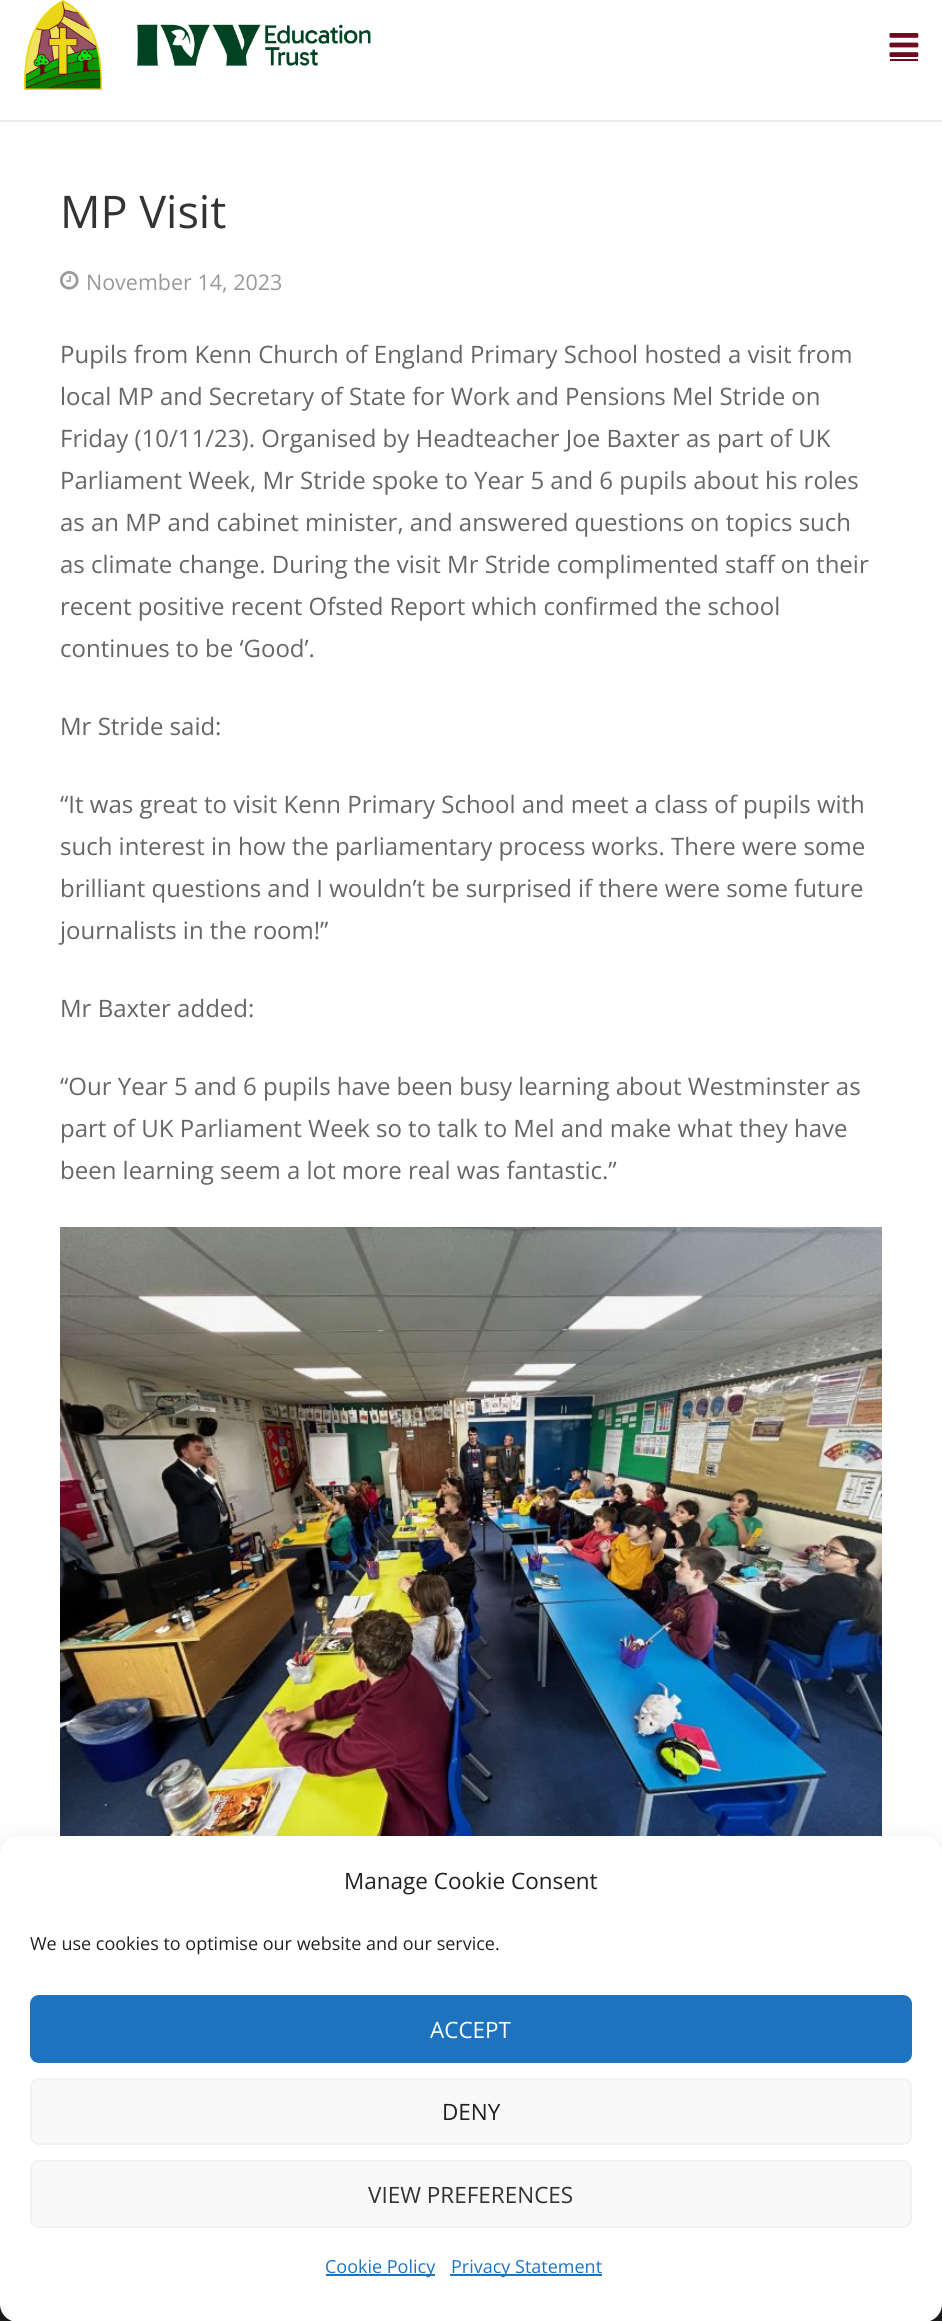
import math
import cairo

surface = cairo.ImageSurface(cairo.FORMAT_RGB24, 942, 2321)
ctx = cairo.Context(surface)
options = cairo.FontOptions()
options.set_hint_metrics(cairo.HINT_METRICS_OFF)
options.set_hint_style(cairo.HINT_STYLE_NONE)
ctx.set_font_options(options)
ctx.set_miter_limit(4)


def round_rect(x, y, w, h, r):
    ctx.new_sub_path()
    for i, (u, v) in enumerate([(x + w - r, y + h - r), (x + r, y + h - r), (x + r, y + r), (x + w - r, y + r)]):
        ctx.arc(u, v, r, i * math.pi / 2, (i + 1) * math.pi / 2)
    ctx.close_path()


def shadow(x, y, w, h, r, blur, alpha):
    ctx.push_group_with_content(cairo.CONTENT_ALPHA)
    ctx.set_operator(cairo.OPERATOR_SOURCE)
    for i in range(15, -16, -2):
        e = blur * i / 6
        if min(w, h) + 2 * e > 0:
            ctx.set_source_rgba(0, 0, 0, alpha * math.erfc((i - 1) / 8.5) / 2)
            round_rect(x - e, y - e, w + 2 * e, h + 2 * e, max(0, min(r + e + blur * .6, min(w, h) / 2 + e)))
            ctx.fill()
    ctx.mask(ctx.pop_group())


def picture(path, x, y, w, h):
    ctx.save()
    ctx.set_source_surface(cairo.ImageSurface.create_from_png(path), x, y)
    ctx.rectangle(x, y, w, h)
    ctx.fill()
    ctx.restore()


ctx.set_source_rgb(1, 1, 1)
ctx.paint()
ctx.set_source_rgb(0.922, 0.922, 0.922)
ctx.rectangle(0, 120, 942, 2)
ctx.fill()
picture("img1.png", 24, 0, 78, 90)
picture("img2.png", 137, 24, 234, 42)
picture("img3.png", 889, 33, 30, 24)
ctx.set_source_rgb(0.431, 0.039, 0.118)
ctx.rectangle(890, 59, 28, 2)
ctx.fill()
ctx.select_font_face("Open Sans")
ctx.set_font_size(45)
ctx.set_source_rgb(0.2, 0.2, 0.2)
ctx.move_to(60, 228)
ctx.show_text("MP Visit")
picture("img4.png", 60, 271, 19, 19)
ctx.set_font_size(21.5)
ctx.set_source_rgb(0.6, 0.6, 0.6)
ctx.move_to(86, 290)
ctx.show_text("November 14, 2023")
ctx.set_font_size(24)
ctx.set_source_rgb(0.4, 0.4, 0.4)
ctx.move_to(60, 363)
ctx.show_text("Pupils from Kenn Church of England Primary School hosted a visit from")
ctx.move_to(60, 405)
ctx.show_text("local MP and Secretary of State for Work and Pensions Mel Stride on")
ctx.move_to(60, 447)
ctx.show_text("Friday (10/11/23). Organised by Headteacher Joe Baxter as part of UK")
ctx.move_to(60, 489)
ctx.show_text("Parliament Week, Mr Stride spoke to Year 5 and 6 pupils about his roles")
ctx.move_to(60, 531)
ctx.show_text("as an MP and cabinet minister, and answered questions on topics such")
ctx.move_to(60, 573)
ctx.show_text("as climate change. During the visit Mr Stride complimented staff on their")
ctx.move_to(60, 615)
ctx.show_text("recent positive recent Ofsted Report which confirmed the school")
ctx.move_to(60, 657)
ctx.show_text("continues to be ‘Good’.")
ctx.move_to(60, 735)
ctx.show_text("Mr Stride said:")
ctx.move_to(60, 813)
ctx.show_text("“It was great to visit Kenn Primary School and meet a class of pupils with")
ctx.move_to(60, 855)
ctx.show_text("such interest in how the parliamentary process works. There were some")
ctx.move_to(60, 897)
ctx.show_text("brilliant questions and I wouldn’t be surprised if there were some future")
ctx.move_to(60, 939)
ctx.show_text("journalists in the room!”")
ctx.move_to(60, 1017)
ctx.show_text("Mr Baxter added:")
ctx.move_to(60, 1095)
ctx.show_text("“Our Year 5 and 6 pupils have been busy learning about Westminster as")
ctx.move_to(60, 1137)
ctx.show_text("part of UK Parliament Week so to talk to Mel and make what they have")
ctx.move_to(60, 1179)
ctx.show_text("been learning seem a lot more real was fantastic.”")
picture("img5.png", 60, 1227, 822, 609)
ctx.set_source_rgb(0.133, 0.133, 0.133)
ctx.rectangle(0, 2304, 942, 17)
ctx.fill()
ctx.set_source_rgb(0, 0, 0)
shadow(0, 1845, 942, 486, 18, 4.5, 0.23)
shadow(0, 1851, 942, 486, 18, 15, 0.19)
ctx.set_source_rgb(1, 1, 1)
round_rect(0, 1836, 942, 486, 18)
ctx.fill()
ctx.set_font_size(22.5)
ctx.set_source_rgb(0.133, 0.133, 0.133)
ctx.move_to(344, 1889)
ctx.show_text("Manage Cookie Consent")
ctx.set_font_size(18)
ctx.move_to(30, 1950)
ctx.show_text("We use cookies to optimise our website and our service.")
ctx.set_source_rgb(0.118, 0.451, 0.745)
round_rect(31, 1996, 880, 66, 8)
ctx.fill_preserve()
ctx.stroke()
ctx.set_font_size(22.5)
ctx.set_source_rgb(1, 1, 1)
ctx.move_to(430, 2038)
ctx.show_text("ACCEPT")
ctx.set_source_rgb(0.976, 0.976, 0.976)
round_rect(31, 2079, 880, 65, 8)
ctx.fill_preserve()
ctx.set_source_rgb(0.949, 0.949, 0.949)
ctx.stroke()
ctx.set_source_rgb(0.133, 0.133, 0.133)
ctx.move_to(442, 2120)
ctx.show_text("DENY")
ctx.set_source_rgb(0.976, 0.976, 0.976)
round_rect(31, 2161, 880, 66, 8)
ctx.fill_preserve()
ctx.set_source_rgb(0.949, 0.949, 0.949)
ctx.stroke()
ctx.set_source_rgb(0.2, 0.2, 0.2)
ctx.move_to(368, 2203)
ctx.show_text("VIEW PREFERENCES")
ctx.set_source_rgb(0.118, 0.451, 0.745)
ctx.rectangle(326, 2274, 109, 2)
ctx.fill()
ctx.set_font_size(18)
ctx.move_to(325, 2273)
ctx.show_text("Cookie Policy")
ctx.rectangle(450, 2274, 152, 2)
ctx.fill()
ctx.move_to(451, 2273)
ctx.show_text("Privacy Statement")
surface.write_to_png("page.png")
